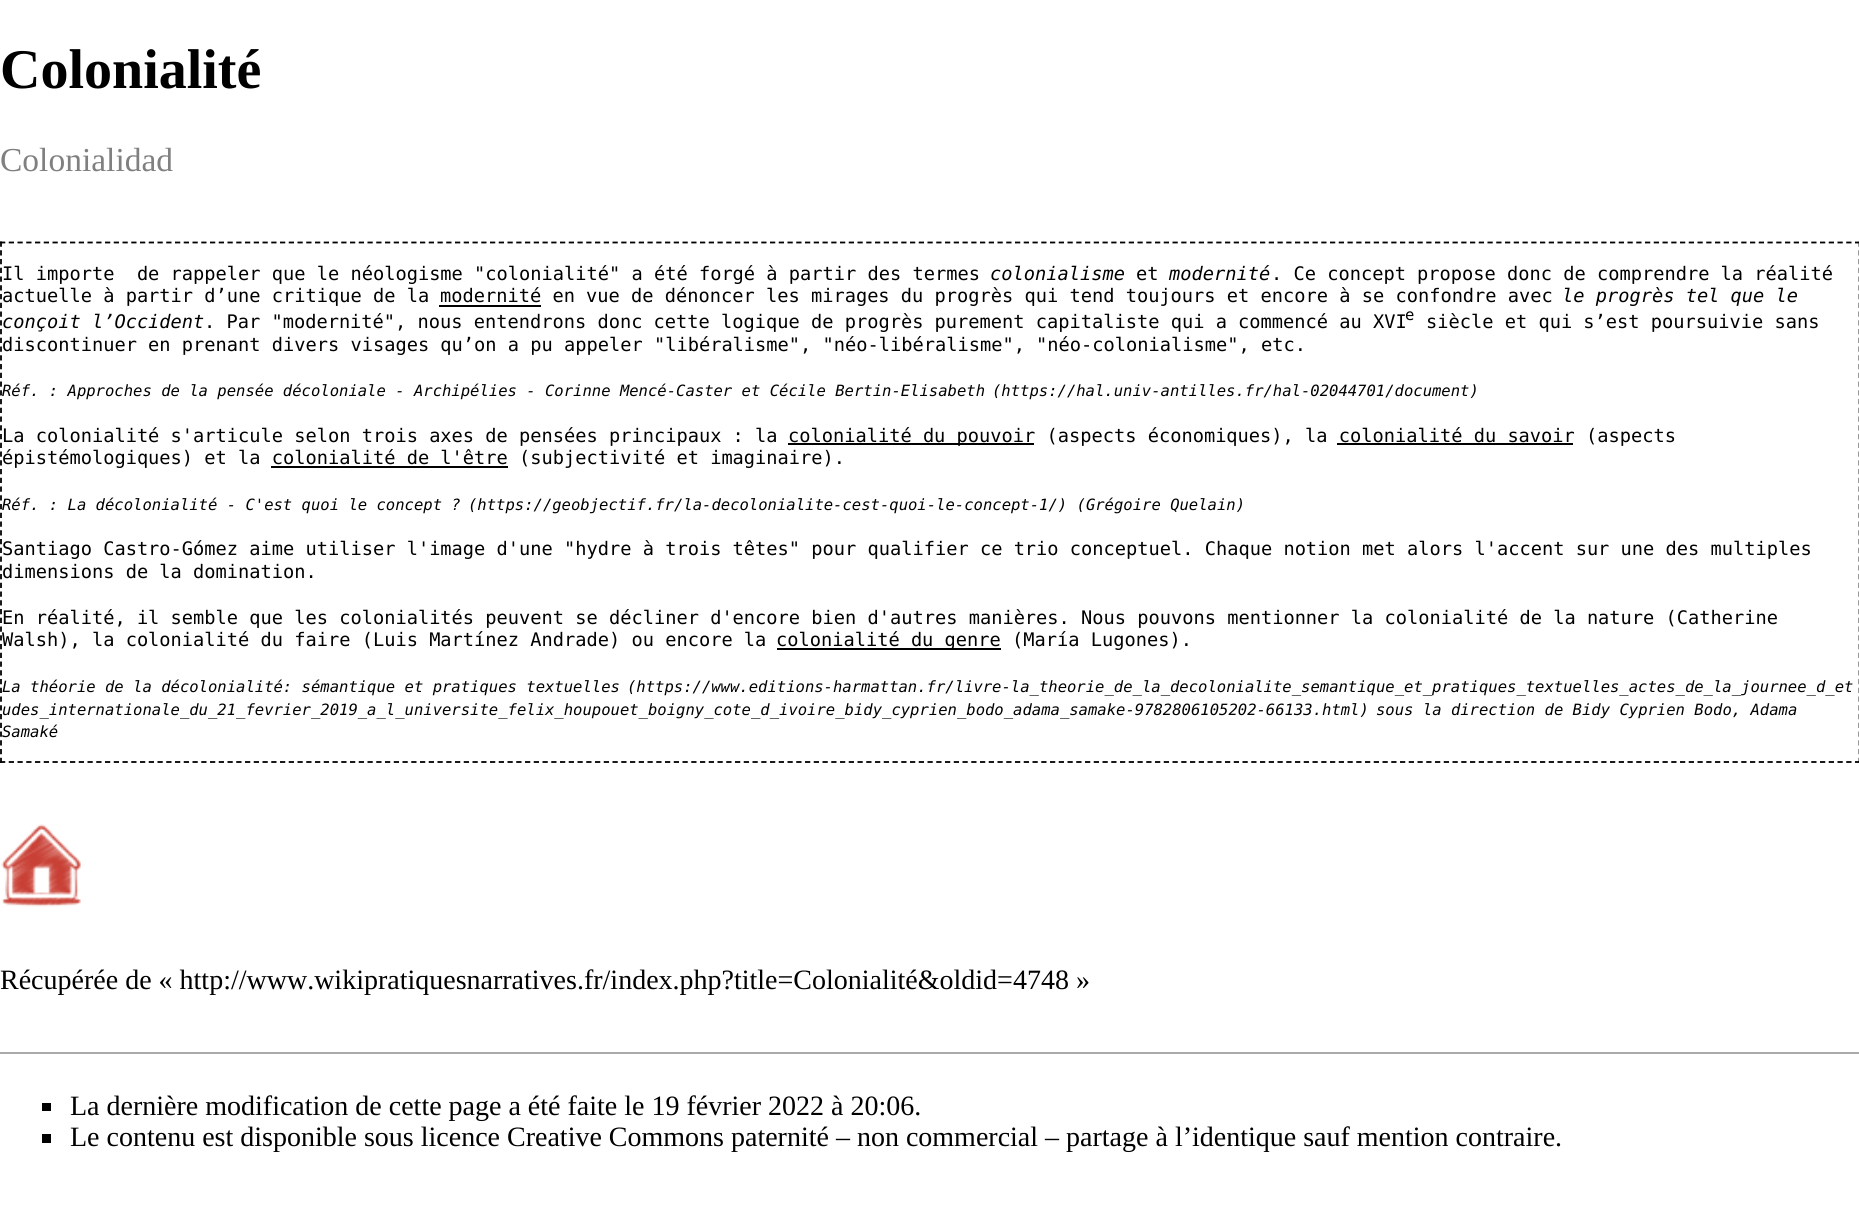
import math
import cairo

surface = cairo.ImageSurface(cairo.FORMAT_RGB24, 1859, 1223)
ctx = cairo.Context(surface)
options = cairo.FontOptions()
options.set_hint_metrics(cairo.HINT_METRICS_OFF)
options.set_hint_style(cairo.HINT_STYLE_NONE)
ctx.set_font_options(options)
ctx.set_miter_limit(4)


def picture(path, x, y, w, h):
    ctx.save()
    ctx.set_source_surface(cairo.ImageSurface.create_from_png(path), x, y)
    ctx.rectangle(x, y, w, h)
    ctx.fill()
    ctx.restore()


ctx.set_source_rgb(1, 1, 1)
ctx.paint()
ctx.select_font_face("Liberation Serif", cairo.FONT_SLANT_NORMAL, cairo.FONT_WEIGHT_BOLD)
ctx.set_font_size(56)
ctx.set_source_rgb(0, 0, 0)
ctx.move_to(0, 88)
ctx.show_text("Colonialité")
ctx.select_font_face("Liberation Serif")
ctx.set_font_size(33.5)
ctx.set_source_rgb(0.502, 0.502, 0.502)
ctx.move_to(0, 171)
ctx.show_text("Colonialidad")
ctx.new_path()
ctx.move_to(0, 242.5)
ctx.line_to(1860, 242.5)
ctx.set_source_rgb(0, 0, 0)
ctx.set_line_width(1.8)
ctx.set_dash([5.25, 3.5])
ctx.stroke()
ctx.new_path()
ctx.move_to(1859.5, 241.5)
ctx.line_to(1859.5, 763)
ctx.stroke()
ctx.new_path()
ctx.move_to(0, 762)
ctx.line_to(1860, 762)
ctx.stroke()
ctx.new_path()
ctx.move_to(1, 241.5)
ctx.line_to(1, 763)
ctx.stroke()
ctx.select_font_face("DejaVu Sans Mono")
ctx.set_font_size(18.67)
ctx.move_to(2, 280)
ctx.show_text("Il importe  de rappeler que le néologisme \"colonialité\" a été forgé à partir des termes")
ctx.select_font_face("DejaVu Sans Mono", cairo.FONT_SLANT_ITALIC)
ctx.move_to(990, 280)
ctx.show_text("colonialisme")
ctx.select_font_face("DejaVu Sans Mono")
ctx.move_to(1136, 280)
ctx.show_text("et")
ctx.select_font_face("DejaVu Sans Mono", cairo.FONT_SLANT_ITALIC)
ctx.move_to(1169, 280)
ctx.show_text("modernité")
ctx.select_font_face("DejaVu Sans Mono")
ctx.move_to(1271, 280)
ctx.show_text(". Ce concept propose donc de comprendre la réalité")
ctx.move_to(2, 302)
ctx.show_text("actuelle à partir d’une critique de la")
ctx.rectangle(439, 305, 102, 2)
ctx.fill()
ctx.move_to(440, 302)
ctx.show_text("modernité en vue de dénoncer les mirages du progrès qui tend toujours et encore à se confondre avec")
ctx.select_font_face("DejaVu Sans Mono", cairo.FONT_SLANT_ITALIC)
ctx.move_to(1562, 302)
ctx.show_text("le progrès tel que le")
ctx.move_to(2, 328)
ctx.show_text("conçoit l’Occident")
ctx.select_font_face("DejaVu Sans Mono")
ctx.move_to(204, 328)
ctx.show_text(". Par \"modernité\", nous entendrons donc cette logique de progrès purement capitaliste qui a commencé au XVI")
ctx.set_font_size(15.55)
ctx.move_to(1405, 320)
ctx.show_text("e")
ctx.set_font_size(18.67)
ctx.move_to(1426, 328)
ctx.show_text("siècle et qui s’est poursuivie sans")
ctx.move_to(2, 351)
ctx.show_text("discontinuer en prenant divers visages qu’on a pu appeler \"libéralisme\", \"néo-libéralisme\", \"néo-colonialisme\", etc.")
ctx.select_font_face("DejaVu Sans Mono", cairo.FONT_SLANT_ITALIC)
ctx.set_font_size(15.55)
ctx.move_to(2, 396)
ctx.show_text("Réf. : Approches de la pensée décoloniale - Archipélies - Corinne Mencé-Caster et Cécile Bertin-Elisabeth")
ctx.move_to(992, 396)
ctx.show_text("(https://hal.univ-antilles.fr/hal-02044701/document)")
ctx.select_font_face("DejaVu Sans Mono")
ctx.set_font_size(18.67)
ctx.move_to(2, 442)
ctx.show_text("La colonialité s'articule selon trois axes de pensées principaux : la")
ctx.rectangle(788, 443, 246, 2)
ctx.fill()
ctx.move_to(788, 442)
ctx.show_text("colonialité du pouvoir (aspects économiques), la colonialité du savoir (aspects")
ctx.rectangle(1337, 443, 236, 2)
ctx.fill()
ctx.move_to(2, 464)
ctx.show_text("épistémologiques) et la colonialité de l'être (subjectivité et imaginaire).")
ctx.rectangle(271, 466, 237, 2)
ctx.fill()
ctx.select_font_face("DejaVu Sans Mono", cairo.FONT_SLANT_ITALIC)
ctx.set_font_size(15.55)
ctx.move_to(2, 510)
ctx.show_text("Réf. : La décolonialité - C'est quoi le concept ?")
ctx.move_to(468, 510)
ctx.show_text("(https://geobjectif.fr/la-decolonialite-cest-quoi-le-concept-1/) (Grégoire Quelain)")
ctx.select_font_face("DejaVu Sans Mono")
ctx.set_font_size(18.67)
ctx.move_to(2, 555)
ctx.show_text("Santiago Castro-Gómez aime utiliser l'image d'une \"hydre à trois têtes\" pour qualifier ce trio conceptuel. Chaque notion met alors l'accent sur une des multiples")
ctx.move_to(2, 578)
ctx.show_text("dimensions de la domination.")
ctx.move_to(2, 624)
ctx.show_text("En réalité, il semble que les colonialités peuvent se décliner d'encore bien d'autres manières. Nous pouvons mentionner la colonialité de la nature (Catherine")
ctx.move_to(2, 646)
ctx.show_text("Walsh), la colonialité du faire (Luis Martínez Andrade) ou encore la")
ctx.rectangle(777, 648, 224, 2)
ctx.fill()
ctx.move_to(776, 646)
ctx.show_text("colonialité du genre (María Lugones).")
ctx.select_font_face("DejaVu Sans Mono", cairo.FONT_SLANT_ITALIC)
ctx.set_font_size(15.55)
ctx.move_to(2, 692)
ctx.show_text("La théorie de la décolonialité: sémantique et pratiques textuelles")
ctx.move_to(627, 692)
ctx.show_text("(https://www.editions-harmattan.fr/livre-la_theorie_de_la_decolonialite_semantique_et_pratiques_textuelles_actes_de_la_journee_d_et")
ctx.move_to(2, 715)
ctx.show_text("udes_internationale_du_21_fevrier_2019_a_l_universite_felix_houpouet_boigny_cote_d_ivoire_bidy_cyprien_bodo_adama_samake-9782806105202-66133.html)")
ctx.move_to(1376, 715)
ctx.show_text("sous la direction de Bidy Cyprien Bodo, Adama")
ctx.move_to(2, 737)
ctx.show_text("Samaké")
picture("img1.png", 1, 824, 80, 83)
ctx.select_font_face("Liberation Serif")
ctx.set_font_size(28)
ctx.move_to(0, 989)
ctx.show_text("Récupérée de « http://www.wikipratiquesnarratives.fr/index.php?title=Colonialité&oldid=4748 »")
ctx.set_source_rgb(0.667, 0.667, 0.667)
ctx.rectangle(0, 1052, 1859, 2)
ctx.fill()
ctx.set_source_rgb(0, 0, 0)
ctx.rectangle(42, 1103, 9, 8)
ctx.fill()
ctx.move_to(70, 1115)
ctx.show_text("La dernière modification de cette page a été faite le 19 février 2022 à 20:06.")
ctx.rectangle(42, 1134, 9, 9)
ctx.fill()
ctx.move_to(70, 1146)
ctx.show_text("Le contenu est disponible sous licence Creative Commons paternité – non commercial – partage à l’identique sauf mention contraire.")
surface.write_to_png("page.png")
